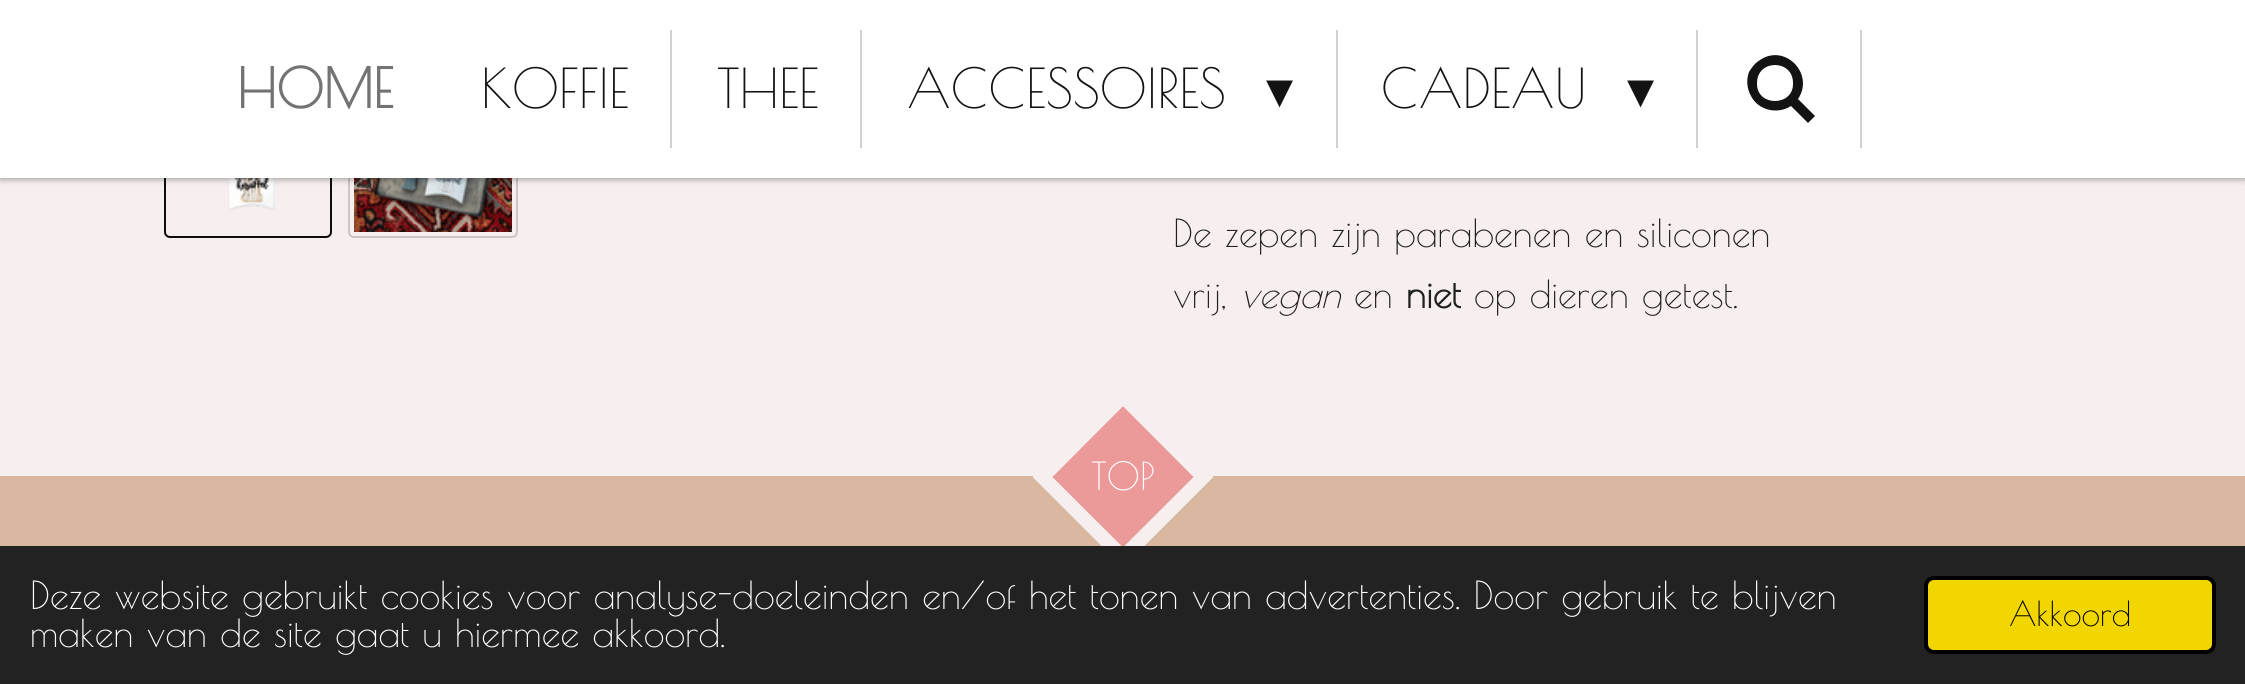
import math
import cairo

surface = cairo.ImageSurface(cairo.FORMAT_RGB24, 2245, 684)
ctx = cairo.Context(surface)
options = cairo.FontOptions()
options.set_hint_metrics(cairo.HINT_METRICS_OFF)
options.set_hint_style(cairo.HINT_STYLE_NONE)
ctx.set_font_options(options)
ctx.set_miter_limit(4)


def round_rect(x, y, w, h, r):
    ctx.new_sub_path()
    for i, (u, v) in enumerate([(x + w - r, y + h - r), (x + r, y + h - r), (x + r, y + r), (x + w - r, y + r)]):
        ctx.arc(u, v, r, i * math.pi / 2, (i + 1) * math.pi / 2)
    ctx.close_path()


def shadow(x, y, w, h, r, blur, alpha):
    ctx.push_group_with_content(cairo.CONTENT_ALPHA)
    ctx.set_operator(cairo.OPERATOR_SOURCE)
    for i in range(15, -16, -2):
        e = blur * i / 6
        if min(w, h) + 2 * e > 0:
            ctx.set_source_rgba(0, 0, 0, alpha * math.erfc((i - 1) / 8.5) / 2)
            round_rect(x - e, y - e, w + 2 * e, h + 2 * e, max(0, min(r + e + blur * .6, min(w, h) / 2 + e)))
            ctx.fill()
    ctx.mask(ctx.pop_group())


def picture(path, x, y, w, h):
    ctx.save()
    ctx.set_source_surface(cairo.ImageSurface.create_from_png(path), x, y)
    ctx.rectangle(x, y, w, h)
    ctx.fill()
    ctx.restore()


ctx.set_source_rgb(0.965, 0.937, 0.937)
ctx.paint()
round_rect(165, 69, 166, 168, 5)
ctx.set_source_rgb(0.051, 0.051, 0.051)
ctx.stroke()
picture("img1.png", 228, 178, 49, 34)
round_rect(349, 69, 168, 168, 5)
ctx.set_source_rgb(0.796, 0.776, 0.776)
ctx.stroke()
picture("img2.png", 354, 178, 158, 54)
ctx.set_source_rgb(0, 0, 0)
shadow(0, -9, 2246, 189, 0, 3, 0.3)
ctx.set_source_rgb(1, 1, 1)
ctx.rectangle(0, 0, 2245, 178)
ctx.fill()
ctx.select_font_face("Poiret One", cairo.FONT_SLANT_NORMAL, cairo.FONT_WEIGHT_BOLD)
ctx.set_font_size(54)
ctx.set_source_rgb(0.451, 0.451, 0.451)
ctx.move_to(237, 108)
ctx.show_text("HOME")
ctx.select_font_face("Poiret One")
ctx.set_source_rgb(0.082, 0.075, 0.075)
ctx.move_to(481, 108)
ctx.show_text("KOFFIE")
ctx.set_source_rgb(0.816, 0.816, 0.816)
ctx.rectangle(670, 30, 2, 118)
ctx.fill()
ctx.set_source_rgb(0.082, 0.075, 0.075)
ctx.move_to(717, 108)
ctx.show_text("THEE")
ctx.set_source_rgb(0.816, 0.816, 0.816)
ctx.rectangle(860, 30, 2, 118)
ctx.fill()
ctx.set_source_rgb(0.082, 0.075, 0.075)
ctx.move_to(907, 108)
ctx.show_text("ACCESSOIRES")
ctx.select_font_face("DejaVu Sans")
ctx.move_to(1266, 108)
ctx.show_text("▾")
ctx.set_source_rgb(0.816, 0.816, 0.816)
ctx.rectangle(1336, 30, 2, 118)
ctx.fill()
ctx.select_font_face("Poiret One")
ctx.set_source_rgb(0.082, 0.075, 0.075)
ctx.move_to(1381, 108)
ctx.show_text("CADEAU")
ctx.select_font_face("DejaVu Sans")
ctx.move_to(1627, 108)
ctx.show_text("▾")
ctx.set_source_rgb(0.816, 0.816, 0.816)
ctx.rectangle(1696, 30, 2, 118)
ctx.fill()
ctx.set_source_rgb(0.082, 0.075, 0.075)
ctx.new_path()
ctx.move_to(1798, 99)
ctx.line_to(1815, 116)
ctx.line_to(1808, 123)
ctx.line_to(1791, 106)
ctx.curve_to(1777, 115, 1758, 110, 1751, 96)
ctx.curve_to(1747, 89, 1746, 80, 1749, 72)
ctx.curve_to(1752, 67, 1755, 63, 1760, 60)
ctx.curve_to(1785, 43, 1815, 74, 1798, 99)
ctx.close_path()
ctx.move_to(1793, 83)
ctx.curve_to(1793, 59, 1757, 59, 1757, 83)
ctx.curve_to(1756, 107, 1794, 107, 1793, 83)
ctx.close_path()
ctx.fill()
ctx.set_source_rgb(0.816, 0.816, 0.816)
ctx.rectangle(1860, 30, 2, 118)
ctx.fill()
ctx.select_font_face("Poiret One")
ctx.set_font_size(38)
ctx.set_source_rgb(0.125, 0.125, 0.125)
ctx.move_to(1173, 247)
ctx.show_text("De zepen zijn parabenen en siliconen")
ctx.move_to(1173, 308)
ctx.show_text("vrij,")
ctx.select_font_face("Poiret One", cairo.FONT_SLANT_ITALIC)
ctx.move_to(1240, 308)
ctx.show_text("vegan")
ctx.select_font_face("Poiret One")
ctx.move_to(1354, 308)
ctx.show_text("en")
ctx.select_font_face("Poiret One", cairo.FONT_SLANT_NORMAL, cairo.FONT_WEIGHT_BOLD)
ctx.move_to(1406, 308)
ctx.show_text("niet")
ctx.select_font_face("Poiret One")
ctx.move_to(1474, 308)
ctx.show_text("op dieren getest.")
ctx.set_source_rgb(0.851, 0.718, 0.631)
ctx.rectangle(0, 476, 2245, 70)
ctx.fill()
ctx.set_source_rgb(0.922, 0.6, 0.6)
ctx.new_path()
ctx.move_to(1123, 406)
ctx.line_to(1194, 477)
ctx.line_to(1123, 547)
ctx.line_to(1052, 477)
ctx.close_path()
ctx.fill()
ctx.new_path()
ctx.move_to(1123, 396)
ctx.line_to(1203.5, 477)
ctx.line_to(1123, 557.5)
ctx.line_to(1042.5, 477)
ctx.close_path()
ctx.set_source_rgb(0.965, 0.937, 0.937)
ctx.set_line_width(14)
ctx.stroke()
ctx.set_source_rgb(1, 1, 1)
ctx.move_to(1091, 490)
ctx.show_text("TOP")
ctx.set_source_rgb(0.133, 0.133, 0.133)
ctx.rectangle(0, 546, 2245, 138)
ctx.fill()
ctx.set_source_rgb(1, 1, 1)
ctx.move_to(30, 609)
ctx.show_text("Deze website gebruikt cookies voor analyse-doeleinden en/of het tonen van advertenties. Door gebruik te blijven")
ctx.move_to(30, 647)
ctx.show_text("maken van de site gaat u hiermee akkoord.")
ctx.set_source_rgb(0.945, 0.839, 0)
round_rect(1926, 578, 288, 74, 8)
ctx.fill_preserve()
ctx.set_source_rgb(0, 0, 0)
ctx.set_line_width(4)
ctx.stroke()
ctx.set_font_size(34)
ctx.move_to(2009, 626)
ctx.show_text("Akkoord")
surface.write_to_png("page.png")
